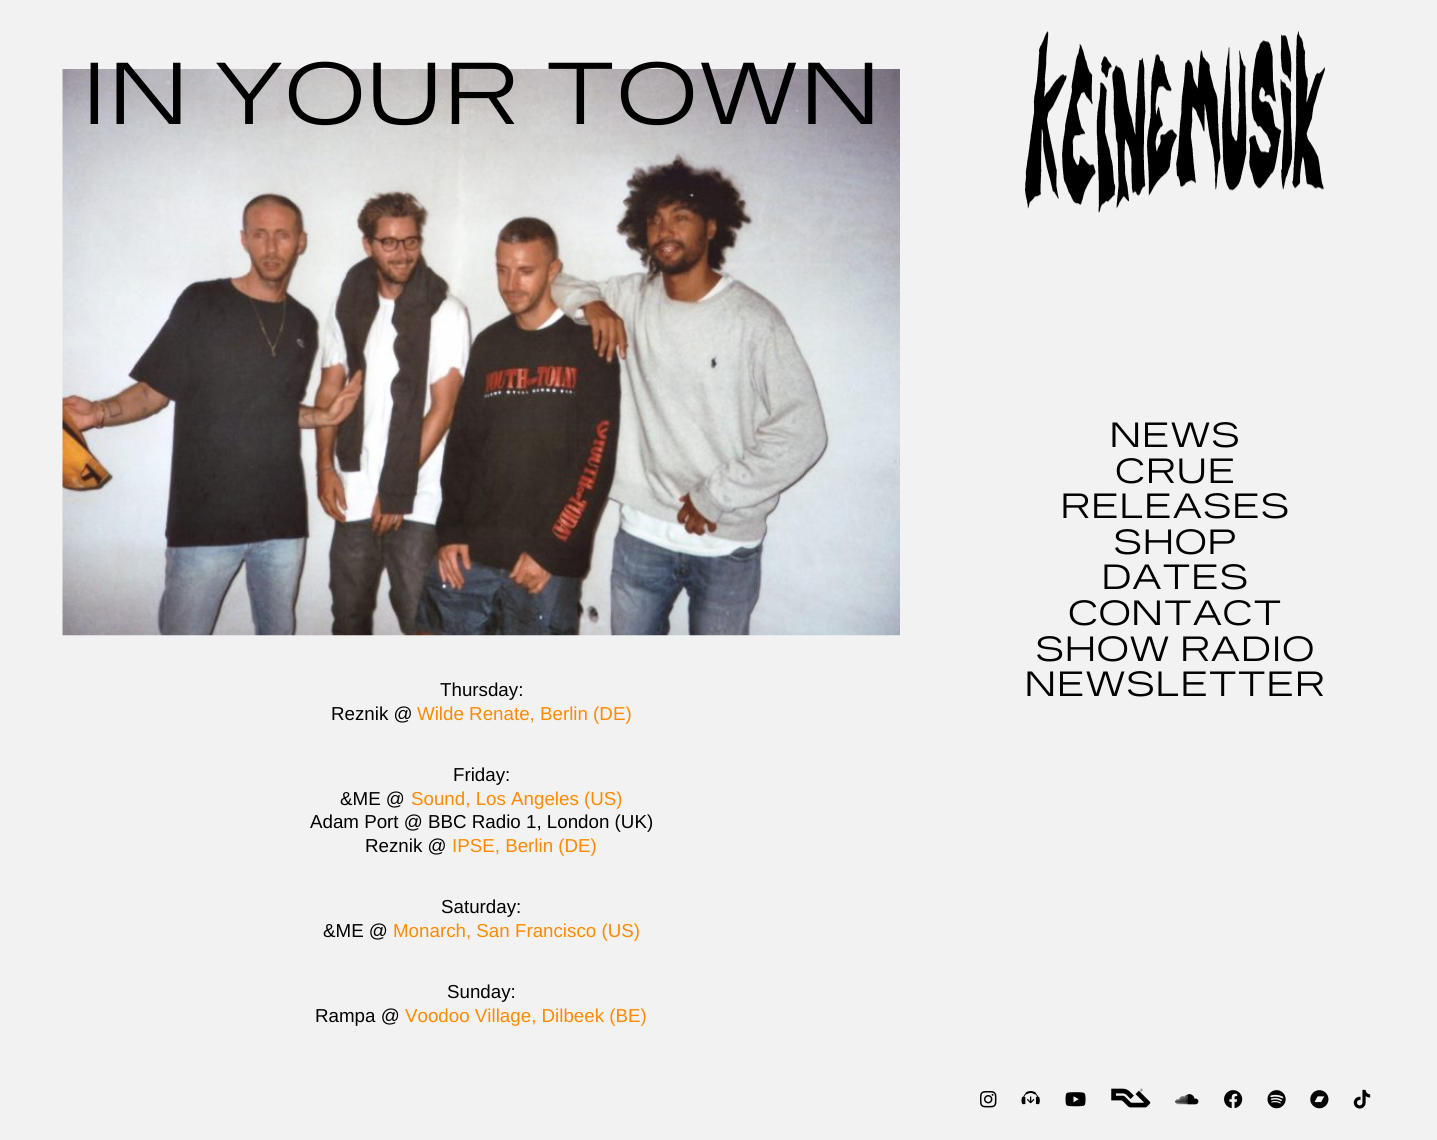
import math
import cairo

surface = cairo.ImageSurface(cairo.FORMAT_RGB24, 1437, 1140)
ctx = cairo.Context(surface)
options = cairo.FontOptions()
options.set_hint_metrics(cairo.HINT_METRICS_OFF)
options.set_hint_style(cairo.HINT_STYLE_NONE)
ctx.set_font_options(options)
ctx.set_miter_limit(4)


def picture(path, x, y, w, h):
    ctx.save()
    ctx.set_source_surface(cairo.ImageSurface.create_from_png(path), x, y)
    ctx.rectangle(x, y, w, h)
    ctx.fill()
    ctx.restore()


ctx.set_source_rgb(0.949, 0.949, 0.949)
ctx.paint()
picture("img11.png", 62, 69, 838, 567)
ctx.select_font_face("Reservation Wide")
ctx.set_font_size(87.5)
ctx.set_source_rgb(0, 0, 0)
ctx.move_to(81, 124)
ctx.show_text("IN YOUR TOWN")
picture("img1.png", 1025, 31, 300, 182)
ctx.set_font_size(35)
ctx.move_to(1109, 447)
ctx.show_text("NEWS")
ctx.move_to(1115, 483)
ctx.show_text("CRUE")
ctx.move_to(1060, 518)
ctx.show_text("RELEASES")
ctx.move_to(1113, 554)
ctx.show_text("SHOP")
ctx.move_to(1101, 589)
ctx.show_text("DATES")
ctx.move_to(1068, 625)
ctx.show_text("CONTACT")
ctx.move_to(1035, 661)
ctx.show_text("SHOW RADIO")
ctx.move_to(1024, 696)
ctx.show_text("NEWSLETTER")
picture("img2.png", 980, 1091, 17, 17)
picture("img3.png", 1021, 1091, 19, 14)
picture("img4.png", 1065, 1092, 21, 15)
picture("img5.png", 1111, 1088, 40, 20)
picture("img6.png", 1175, 1094, 24, 11)
picture("img7.png", 1224, 1090, 19, 19)
picture("img8.png", 1267, 1090, 19, 19)
picture("img9.png", 1310, 1090, 19, 19)
picture("img10.png", 1353, 1089, 18, 20)
ctx.select_font_face("Liberation Sans")
ctx.set_font_size(18.75)
ctx.move_to(440, 696)
ctx.show_text("Thursday:")
ctx.move_to(331, 720)
ctx.show_text("Reznik @")
ctx.set_source_rgb(1, 0.537, 0)
ctx.move_to(417, 720)
ctx.show_text("Wilde Renate, Berlin (DE)")
ctx.set_source_rgb(0, 0, 0)
ctx.move_to(453, 781)
ctx.show_text("Friday:")
ctx.move_to(340, 805)
ctx.show_text("&ME @")
ctx.set_source_rgb(1, 0.537, 0)
ctx.move_to(411, 805)
ctx.show_text("Sound, Los Angeles (US)")
ctx.set_source_rgb(0, 0, 0)
ctx.move_to(310, 828)
ctx.show_text("Adam Port @ BBC Radio 1, London (UK)")
ctx.move_to(365, 852)
ctx.show_text("Reznik @")
ctx.set_source_rgb(1, 0.537, 0)
ctx.move_to(452, 852)
ctx.show_text("IPSE, Berlin (DE)")
ctx.set_source_rgb(0, 0, 0)
ctx.move_to(441, 913)
ctx.show_text("Saturday:")
ctx.move_to(323, 937)
ctx.show_text("&ME @")
ctx.set_source_rgb(1, 0.537, 0)
ctx.move_to(393, 937)
ctx.show_text("Monarch, San Francisco (US)")
ctx.set_source_rgb(0, 0, 0)
ctx.move_to(447, 998)
ctx.show_text("Sunday:")
ctx.move_to(315, 1022)
ctx.show_text("Rampa @")
ctx.set_source_rgb(1, 0.537, 0)
ctx.move_to(405, 1022)
ctx.show_text("Voodoo Village, Dilbeek (BE)")
surface.write_to_png("page.png")
